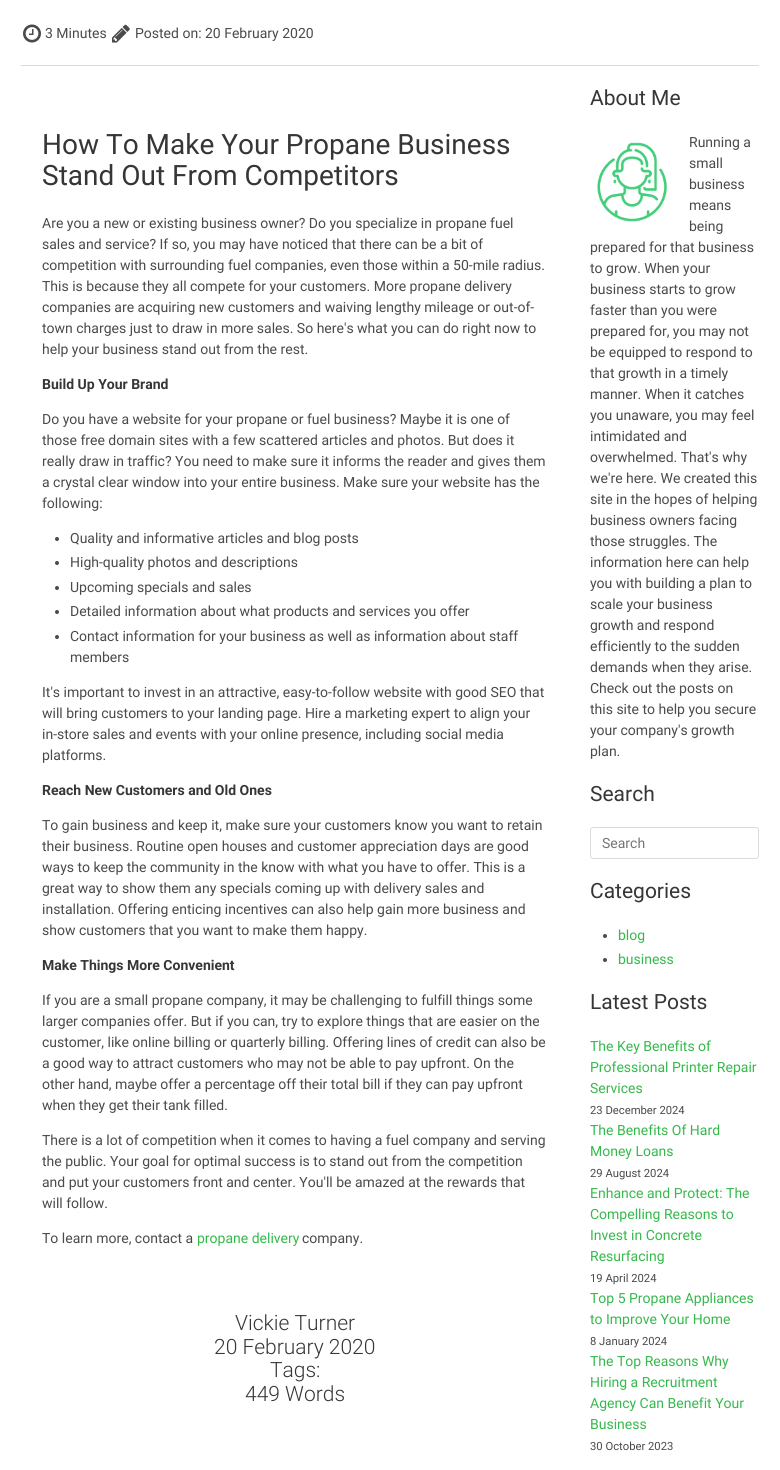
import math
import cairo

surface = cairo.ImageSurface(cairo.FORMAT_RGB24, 780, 1470)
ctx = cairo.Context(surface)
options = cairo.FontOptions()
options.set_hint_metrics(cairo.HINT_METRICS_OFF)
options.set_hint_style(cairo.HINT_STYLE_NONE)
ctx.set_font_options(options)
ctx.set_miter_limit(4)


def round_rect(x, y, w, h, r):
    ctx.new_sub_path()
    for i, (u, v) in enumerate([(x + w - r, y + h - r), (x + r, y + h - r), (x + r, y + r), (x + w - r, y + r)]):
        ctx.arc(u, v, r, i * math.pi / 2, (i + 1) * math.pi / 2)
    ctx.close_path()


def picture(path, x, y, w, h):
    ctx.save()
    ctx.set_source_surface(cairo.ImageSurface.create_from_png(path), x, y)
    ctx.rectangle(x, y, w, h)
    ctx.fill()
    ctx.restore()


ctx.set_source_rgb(1, 1, 1)
ctx.paint()
picture("img1.png", 23, 24, 18, 19)
ctx.select_font_face("Roboto")
ctx.set_font_size(14)
ctx.set_source_rgb(0.29, 0.29, 0.29)
ctx.move_to(45, 38)
ctx.show_text("3 Minutes")
picture("img2.png", 112, 24, 18, 19)
ctx.move_to(135, 38)
ctx.show_text("Posted on: 20 February 2020")
ctx.set_source_rgb(0.859, 0.859, 0.859)
ctx.rectangle(21, 65, 738, 1)
ctx.fill()
ctx.set_font_size(28)
ctx.set_source_rgb(0.212, 0.212, 0.212)
ctx.move_to(42, 154)
ctx.show_text("How To Make Your Propane Business")
ctx.move_to(42, 185)
ctx.show_text("Stand Out From Competitors")
ctx.set_font_size(14)
ctx.set_source_rgb(0.29, 0.29, 0.29)
ctx.move_to(42, 228)
ctx.show_text("Are you a new or existing business owner? Do you specialize in propane fuel")
ctx.move_to(42, 249)
ctx.show_text("sales and service? If so, you may have noticed that there can be a bit of")
ctx.move_to(42, 270)
ctx.show_text("competition with surrounding fuel companies, even those within a 50-mile radius.")
ctx.move_to(42, 291)
ctx.show_text("This is because they all compete for your customers. More propane delivery")
ctx.move_to(42, 312)
ctx.show_text("companies are acquiring new customers and waiving lengthy mileage or out-of-")
ctx.move_to(42, 333)
ctx.show_text("town charges just to draw in more sales. So here's what you can do right now to")
ctx.move_to(42, 354)
ctx.show_text("help your business stand out from the rest.")
ctx.select_font_face("Roboto", cairo.FONT_SLANT_NORMAL, cairo.FONT_WEIGHT_BOLD)
ctx.set_source_rgb(0.212, 0.212, 0.212)
ctx.move_to(42, 389)
ctx.show_text("Build Up Your Brand")
ctx.select_font_face("Roboto")
ctx.set_source_rgb(0.29, 0.29, 0.29)
ctx.move_to(42, 424)
ctx.show_text("Do you have a website for your propane or fuel business? Maybe it is one of")
ctx.move_to(42, 445)
ctx.show_text("those free domain sites with a few scattered articles and photos. But does it")
ctx.move_to(42, 466)
ctx.show_text("really draw in traffic? You need to make sure it informs the reader and gives them")
ctx.move_to(42, 487)
ctx.show_text("a crystal clear window into your entire business. Make sure your website has the")
ctx.move_to(42, 508)
ctx.show_text("following:")
ctx.new_path()
ctx.arc(57, 539, 2, 0, 2 * math.pi)
ctx.fill()
ctx.move_to(70, 543)
ctx.show_text("Quality and informative articles and blog posts")
ctx.new_path()
ctx.arc(57, 563, 2, 0, 2 * math.pi)
ctx.fill()
ctx.move_to(70, 567)
ctx.show_text("High-quality photos and descriptions")
ctx.new_path()
ctx.arc(57, 588, 2, 0, 2 * math.pi)
ctx.fill()
ctx.move_to(70, 592)
ctx.show_text("Upcoming specials and sales")
ctx.new_path()
ctx.arc(57, 612, 2, 0, 2 * math.pi)
ctx.fill()
ctx.move_to(70, 616)
ctx.show_text("Detailed information about what products and services you offer")
ctx.new_path()
ctx.arc(57, 637, 2, 0, 2 * math.pi)
ctx.fill()
ctx.move_to(70, 641)
ctx.show_text("Contact information for your business as well as information about staff")
ctx.move_to(70, 662)
ctx.show_text("members")
ctx.move_to(42, 697)
ctx.show_text("It's important to invest in an attractive, easy-to-follow website with good SEO that")
ctx.move_to(42, 718)
ctx.show_text("will bring customers to your landing page. Hire a marketing expert to align your")
ctx.move_to(42, 739)
ctx.show_text("in-store sales and events with your online presence, including social media")
ctx.move_to(42, 760)
ctx.show_text("platforms.")
ctx.select_font_face("Roboto", cairo.FONT_SLANT_NORMAL, cairo.FONT_WEIGHT_BOLD)
ctx.set_source_rgb(0.212, 0.212, 0.212)
ctx.move_to(42, 795)
ctx.show_text("Reach New Customers and Old Ones")
ctx.select_font_face("Roboto")
ctx.set_source_rgb(0.29, 0.29, 0.29)
ctx.move_to(42, 830)
ctx.show_text("To gain business and keep it, make sure your customers know you want to retain")
ctx.move_to(42, 851)
ctx.show_text("their business. Routine open houses and customer appreciation days are good")
ctx.move_to(42, 872)
ctx.show_text("ways to keep the community in the know with what you have to offer. This is a")
ctx.move_to(42, 893)
ctx.show_text("great way to show them any specials coming up with delivery sales and")
ctx.move_to(42, 914)
ctx.show_text("installation. Offering enticing incentives can also help gain more business and")
ctx.move_to(42, 935)
ctx.show_text("show customers that you want to make them happy.")
ctx.select_font_face("Roboto", cairo.FONT_SLANT_NORMAL, cairo.FONT_WEIGHT_BOLD)
ctx.set_source_rgb(0.212, 0.212, 0.212)
ctx.move_to(42, 970)
ctx.show_text("Make Things More Convenient")
ctx.select_font_face("Roboto")
ctx.set_source_rgb(0.29, 0.29, 0.29)
ctx.move_to(42, 1005)
ctx.show_text("If you are a small propane company, it may be challenging to fulfill things some")
ctx.move_to(42, 1026)
ctx.show_text("larger companies offer. But if you can, try to explore things that are easier on the")
ctx.move_to(42, 1047)
ctx.show_text("customer, like online billing or quarterly billing. Offering lines of credit can also be")
ctx.move_to(42, 1068)
ctx.show_text("a good way to attract customers who may not be able to pay upfront. On the")
ctx.move_to(42, 1089)
ctx.show_text("other hand, maybe offer a percentage off their total bill if they can pay upfront")
ctx.move_to(42, 1110)
ctx.show_text("when they get their tank filled.")
ctx.move_to(42, 1145)
ctx.show_text("There is a lot of competition when it comes to having a fuel company and serving")
ctx.move_to(42, 1166)
ctx.show_text("the public. Your goal for optimal success is to stand out from the competition")
ctx.move_to(42, 1187)
ctx.show_text("and put your customers front and center. You'll be amazed at the rewards that")
ctx.move_to(42, 1208)
ctx.show_text("will follow.")
ctx.move_to(42, 1243)
ctx.show_text("To learn more, contact a")
ctx.set_source_rgb(0.208, 0.725, 0.298)
ctx.move_to(197, 1243)
ctx.show_text("propane delivery")
ctx.set_source_rgb(0.29, 0.29, 0.29)
ctx.move_to(302, 1243)
ctx.show_text("company.")
ctx.select_font_face("Roboto Light")
ctx.set_font_size(21)
ctx.set_source_rgb(0.212, 0.212, 0.212)
ctx.move_to(235, 1330)
ctx.show_text("Vickie Turner")
ctx.move_to(214, 1354)
ctx.show_text("20 February 2020")
ctx.move_to(270, 1377)
ctx.show_text("Tags:")
ctx.move_to(245, 1401)
ctx.show_text("449 Words")
ctx.select_font_face("Roboto")
ctx.move_to(590, 105)
ctx.show_text("About Me")
picture("img3.png", 597, 142, 70, 80)
ctx.set_font_size(14)
ctx.set_source_rgb(0.29, 0.29, 0.29)
ctx.move_to(689, 147)
ctx.show_text("Running a")
ctx.move_to(689, 168)
ctx.show_text("small")
ctx.move_to(689, 189)
ctx.show_text("business")
ctx.move_to(689, 210)
ctx.show_text("means")
ctx.move_to(689, 231)
ctx.show_text("being")
ctx.move_to(590, 252)
ctx.show_text("prepared for that business")
ctx.move_to(590, 273)
ctx.show_text("to grow. When your")
ctx.move_to(590, 294)
ctx.show_text("business starts to grow")
ctx.move_to(590, 315)
ctx.show_text("faster than you were")
ctx.move_to(590, 336)
ctx.show_text("prepared for, you may not")
ctx.move_to(590, 357)
ctx.show_text("be equipped to respond to")
ctx.move_to(590, 378)
ctx.show_text("that growth in a timely")
ctx.move_to(590, 399)
ctx.show_text("manner. When it catches")
ctx.move_to(590, 420)
ctx.show_text("you unaware, you may feel")
ctx.move_to(590, 441)
ctx.show_text("intimidated and")
ctx.move_to(590, 462)
ctx.show_text("overwhelmed. That's why")
ctx.move_to(590, 483)
ctx.show_text("we're here. We created this")
ctx.move_to(590, 504)
ctx.show_text("site in the hopes of helping")
ctx.move_to(590, 525)
ctx.show_text("business owners facing")
ctx.move_to(590, 546)
ctx.show_text("those struggles. The")
ctx.move_to(590, 567)
ctx.show_text("information here can help")
ctx.move_to(590, 588)
ctx.show_text("you with building a plan to")
ctx.move_to(590, 609)
ctx.show_text("scale your business")
ctx.move_to(590, 630)
ctx.show_text("growth and respond")
ctx.move_to(590, 651)
ctx.show_text("efficiently to the sudden")
ctx.move_to(590, 672)
ctx.show_text("demands when they arise.")
ctx.move_to(590, 693)
ctx.show_text("Check out the posts on")
ctx.move_to(590, 714)
ctx.show_text("this site to help you secure")
ctx.move_to(590, 735)
ctx.show_text("your company's growth")
ctx.move_to(590, 756)
ctx.show_text("plan.")
ctx.set_font_size(21)
ctx.set_source_rgb(0.212, 0.212, 0.212)
ctx.move_to(590, 801)
ctx.show_text("Search")
round_rect(590.5, 827.5, 168, 31, 2.5)
ctx.set_source_rgb(0.859, 0.859, 0.859)
ctx.set_line_width(1)
ctx.stroke()
ctx.set_font_size(14)
ctx.set_source_rgb(0.459, 0.459, 0.459)
ctx.move_to(602, 848)
ctx.show_text("Search")
ctx.set_font_size(21)
ctx.set_source_rgb(0.212, 0.212, 0.212)
ctx.move_to(590, 898)
ctx.show_text("Categories")
ctx.set_source_rgb(0.29, 0.29, 0.29)
ctx.new_path()
ctx.arc(605, 936, 2, 0, 2 * math.pi)
ctx.fill()
ctx.set_font_size(14)
ctx.set_source_rgb(0.208, 0.725, 0.298)
ctx.move_to(618, 940)
ctx.show_text("blog")
ctx.set_source_rgb(0.29, 0.29, 0.29)
ctx.new_path()
ctx.arc(605, 960, 2, 0, 2 * math.pi)
ctx.fill()
ctx.set_source_rgb(0.208, 0.725, 0.298)
ctx.move_to(618, 964)
ctx.show_text("business")
ctx.set_font_size(21)
ctx.set_source_rgb(0.212, 0.212, 0.212)
ctx.move_to(590, 1009)
ctx.show_text("Latest Posts")
ctx.set_font_size(14)
ctx.set_source_rgb(0.208, 0.725, 0.298)
ctx.move_to(590, 1051)
ctx.show_text("The Key Benefits of")
ctx.move_to(590, 1072)
ctx.show_text("Professional Printer Repair")
ctx.move_to(590, 1093)
ctx.show_text("Services")
ctx.set_font_size(11.25)
ctx.set_source_rgb(0.29, 0.29, 0.29)
ctx.move_to(590, 1114)
ctx.show_text("23 December 2024")
ctx.set_font_size(14)
ctx.set_source_rgb(0.208, 0.725, 0.298)
ctx.move_to(590, 1135)
ctx.show_text("The Benefits Of Hard")
ctx.move_to(590, 1156)
ctx.show_text("Money Loans")
ctx.set_font_size(11.25)
ctx.set_source_rgb(0.29, 0.29, 0.29)
ctx.move_to(590, 1177)
ctx.show_text("29 August 2024")
ctx.set_font_size(14)
ctx.set_source_rgb(0.208, 0.725, 0.298)
ctx.move_to(590, 1198)
ctx.show_text("Enhance and Protect: The")
ctx.move_to(590, 1219)
ctx.show_text("Compelling Reasons to")
ctx.move_to(590, 1240)
ctx.show_text("Invest in Concrete")
ctx.move_to(590, 1261)
ctx.show_text("Resurfacing")
ctx.set_font_size(11.25)
ctx.set_source_rgb(0.29, 0.29, 0.29)
ctx.move_to(590, 1282)
ctx.show_text("19 April 2024")
ctx.set_font_size(14)
ctx.set_source_rgb(0.208, 0.725, 0.298)
ctx.move_to(590, 1303)
ctx.show_text("Top 5 Propane Appliances")
ctx.move_to(590, 1324)
ctx.show_text("to Improve Your Home")
ctx.set_font_size(11.25)
ctx.set_source_rgb(0.29, 0.29, 0.29)
ctx.move_to(590, 1345)
ctx.show_text("8 January 2024")
ctx.set_font_size(14)
ctx.set_source_rgb(0.208, 0.725, 0.298)
ctx.move_to(590, 1366)
ctx.show_text("The Top Reasons Why")
ctx.move_to(590, 1387)
ctx.show_text("Hiring a Recruitment")
ctx.move_to(590, 1408)
ctx.show_text("Agency Can Benefit Your")
ctx.move_to(590, 1429)
ctx.show_text("Business")
ctx.set_font_size(11.25)
ctx.set_source_rgb(0.29, 0.29, 0.29)
ctx.move_to(590, 1450)
ctx.show_text("30 October 2023")
surface.write_to_png("page.png")
